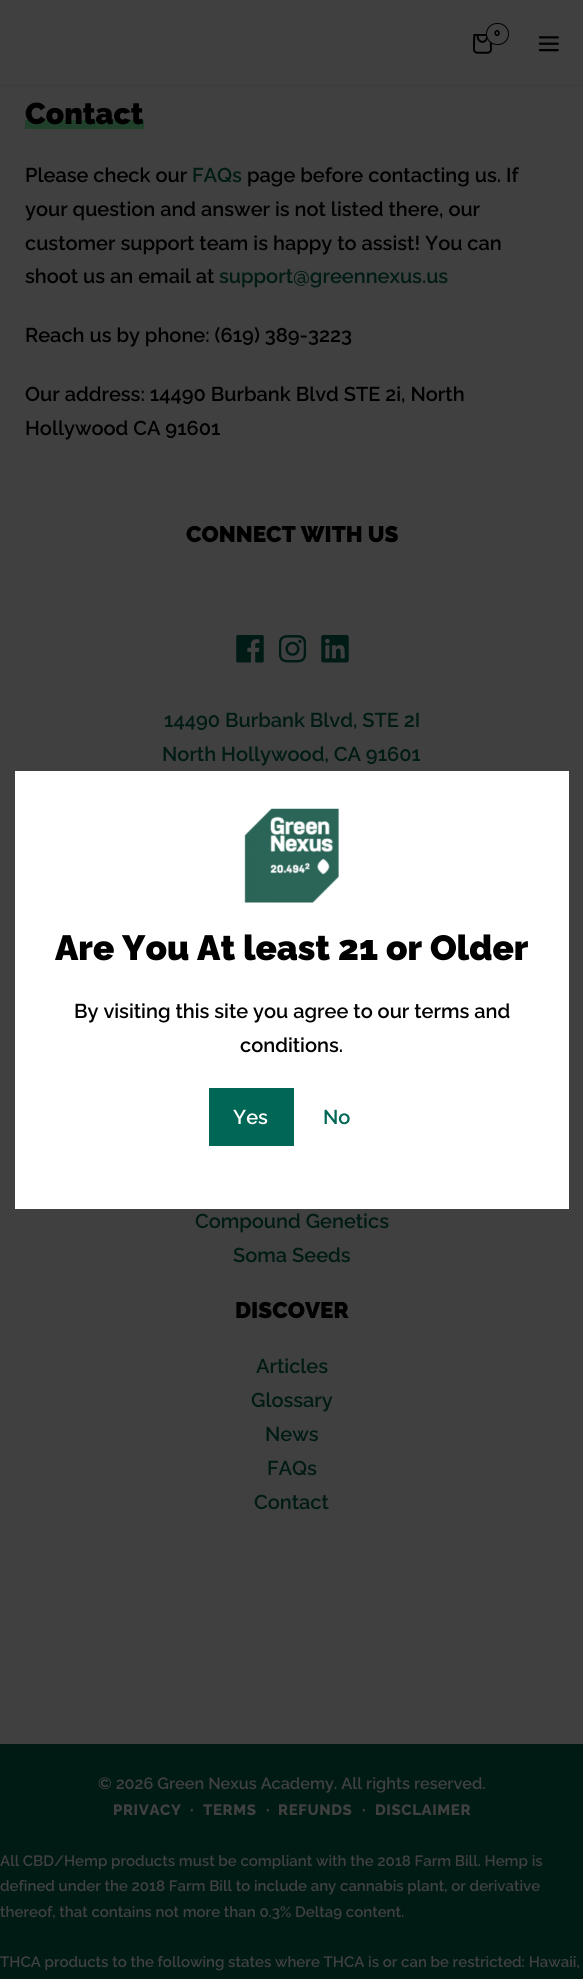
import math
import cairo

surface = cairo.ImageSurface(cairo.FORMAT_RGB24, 583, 1979)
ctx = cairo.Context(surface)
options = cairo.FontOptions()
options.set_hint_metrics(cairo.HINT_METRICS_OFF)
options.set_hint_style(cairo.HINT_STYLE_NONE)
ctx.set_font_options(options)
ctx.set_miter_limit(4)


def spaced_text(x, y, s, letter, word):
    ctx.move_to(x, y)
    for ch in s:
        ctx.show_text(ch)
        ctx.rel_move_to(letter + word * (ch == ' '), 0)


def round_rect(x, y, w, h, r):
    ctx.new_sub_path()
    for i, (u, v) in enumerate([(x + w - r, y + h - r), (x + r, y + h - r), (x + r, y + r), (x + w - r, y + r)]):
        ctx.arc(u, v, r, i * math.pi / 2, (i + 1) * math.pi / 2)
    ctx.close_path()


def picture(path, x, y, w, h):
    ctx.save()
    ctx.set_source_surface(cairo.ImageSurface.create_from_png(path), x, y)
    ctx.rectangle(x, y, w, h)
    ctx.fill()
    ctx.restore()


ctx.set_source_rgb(0.251, 0.251, 0.251)
ctx.paint()
ctx.set_source_rgb(0.235, 0.235, 0.235)
ctx.rectangle(0, 85, 583, 1)
ctx.fill()
picture("img1.png", 473, 34, 19, 20)
ctx.set_source_rgb(0.251, 0.251, 0.251)
round_rect(486.5, 23.5, 22, 21, 10.5)
ctx.fill_preserve()
ctx.set_source_rgb(0, 0, 0)
ctx.set_line_width(1)
ctx.stroke()
ctx.select_font_face("Raleway Thin")
ctx.set_font_size(10)
ctx.move_to(494, 36)
ctx.show_text("0")
picture("img2.png", 539, 36, 20, 16)
ctx.set_source_rgb(0.125, 0.251, 0.173)
ctx.rectangle(25, 120, 119, 9)
ctx.fill()
ctx.select_font_face("Raleway Black")
ctx.set_font_size(30)
ctx.set_source_rgb(0, 0, 0)
ctx.move_to(25, 124)
ctx.show_text("Contact")
ctx.select_font_face("Raleway SemiBold")
ctx.set_font_size(20)
ctx.move_to(25, 182)
ctx.show_text("Please check our")
ctx.set_source_rgb(0, 0.102, 0.082)
ctx.move_to(192, 182)
ctx.show_text("FAQs")
ctx.set_source_rgb(0, 0, 0)
ctx.move_to(247, 182)
ctx.show_text("page before contacting us. If")
ctx.move_to(25, 216)
ctx.show_text("your question and answer is not listed there, our")
ctx.move_to(25, 250)
ctx.show_text("customer support team is happy to assist! You can")
ctx.move_to(25, 283)
ctx.show_text("shoot us an email at")
ctx.set_source_rgb(0, 0.102, 0.082)
ctx.move_to(219, 283)
ctx.show_text("support@greennexus.us")
ctx.set_source_rgb(0, 0, 0)
ctx.move_to(25, 342)
ctx.show_text("Reach us by phone: (619) 389-3223")
ctx.move_to(25, 401)
ctx.show_text("Our address: 14490 Burbank Blvd STE 2i, North")
ctx.move_to(25, 435)
ctx.show_text("Hollywood CA 91601")
ctx.set_source_rgb(0, 0.102, 0.082)
ctx.rectangle(0, 1745, 583, 234)
ctx.fill()
ctx.select_font_face("Raleway Black")
ctx.set_font_size(22.5)
ctx.set_source_rgb(0, 0, 0)
ctx.move_to(186, 542)
ctx.show_text("CONNECT WITH US")
picture("img3.png", 236, 635, 28, 28)
picture("img4.png", 279, 635, 27, 28)
picture("img5.png", 321, 635, 28, 28)
ctx.select_font_face("Raleway SemiBold")
ctx.set_font_size(20)
ctx.set_source_rgb(0, 0.102, 0.082)
ctx.move_to(164, 727)
ctx.show_text("14490 Burbank Blvd, STE 2I")
ctx.move_to(162, 761)
ctx.show_text("North Hollywood, CA 91601")
ctx.move_to(195, 1228)
ctx.show_text("Compound Genetics")
ctx.move_to(233, 1262)
ctx.show_text("Soma Seeds")
ctx.select_font_face("Raleway Black")
ctx.set_font_size(22.5)
ctx.set_source_rgb(0, 0, 0)
ctx.move_to(235, 1318)
ctx.show_text("DISCOVER")
ctx.select_font_face("Raleway SemiBold")
ctx.set_font_size(20)
ctx.set_source_rgb(0, 0.102, 0.082)
ctx.move_to(256, 1373)
ctx.show_text("Articles")
ctx.move_to(251, 1407)
ctx.show_text("Glossary")
ctx.move_to(265, 1441)
ctx.show_text("News")
ctx.move_to(267, 1475)
ctx.show_text("FAQs")
ctx.move_to(254, 1509)
ctx.show_text("Contact")
ctx.set_source_rgb(0, 0.09, 0.075)
ctx.rectangle(0, 1744, 583, 1)
ctx.fill()
ctx.set_font_size(16.25)
ctx.set_source_rgb(0.251, 0.251, 0.251)
ctx.move_to(98, 1789)
ctx.show_text("© 2026 Green Nexus Academy. All rights reserved.")
ctx.select_font_face("Raleway Thin")
ctx.set_font_size(15)
spaced_text(113, 1815, "PRIVACY", 0.6, 0)
spaced_text(190, 1815, "·", 0.6, 0)
spaced_text(203, 1815, "TERMS", 0.6, 0)
spaced_text(266, 1815, "·", 0.6, 0)
spaced_text(278, 1815, "REFUNDS", 0.6, 0)
spaced_text(362, 1815, "·", 0.6, 0)
spaced_text(375, 1815, "DISCLAIMER", 0.6, 0)
ctx.select_font_face("Raleway SemiBold")
ctx.move_to(0, 1866)
ctx.show_text("All CBD/Hemp products must be compliant with the 2018 Farm Bill. Hemp is")
ctx.move_to(0, 1891)
ctx.show_text("defined under the 2018 Farm Bill to include any cannabis plant, or derivative")
ctx.move_to(0, 1917)
ctx.show_text("thereof, that contains not more than 0.3% Delta9 content.")
ctx.move_to(0, 1967)
ctx.show_text("THCA products to the following states where THCA is or can be restricted: Hawaii,")
ctx.set_source_rgb(1, 1, 1)
ctx.rectangle(15, 771, 554, 438)
ctx.fill()
picture("img6.png", 244, 808, 95, 95)
ctx.select_font_face("Raleway Black")
ctx.set_font_size(35)
ctx.set_source_rgb(0, 0, 0)
ctx.move_to(55, 960)
ctx.show_text("Are You At least 21 or Older")
ctx.select_font_face("Raleway SemiBold")
ctx.set_font_size(20)
ctx.move_to(74, 1018)
ctx.show_text("By visiting this site you agree to our terms and")
ctx.move_to(240, 1052)
ctx.show_text("conditions.")
ctx.set_source_rgb(0, 0.4, 0.333)
ctx.rectangle(209, 1088, 85, 58)
ctx.fill()
ctx.set_source_rgb(1, 1, 1)
ctx.move_to(233, 1124)
ctx.show_text("Yes")
ctx.set_source_rgb(0, 0.4, 0.333)
ctx.move_to(323, 1124)
ctx.show_text("No")
surface.write_to_png("page.png")
